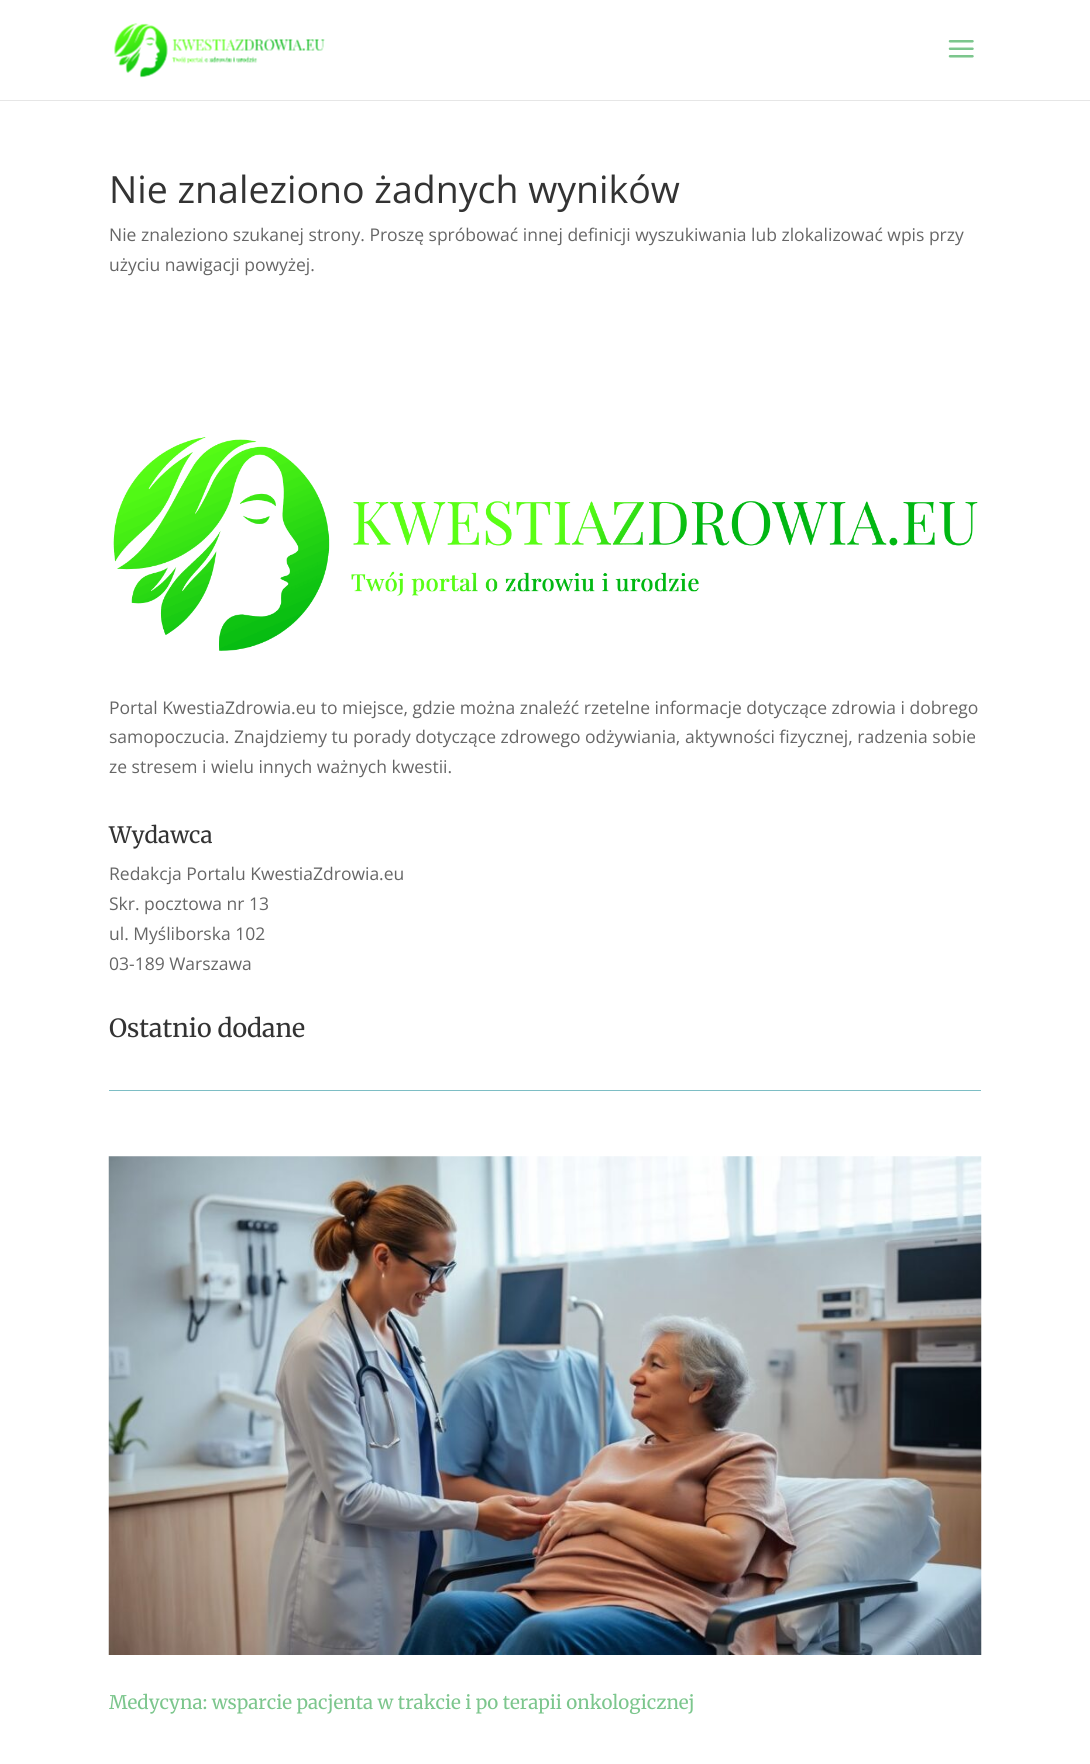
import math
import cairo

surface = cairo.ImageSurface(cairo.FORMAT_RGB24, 1090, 1764)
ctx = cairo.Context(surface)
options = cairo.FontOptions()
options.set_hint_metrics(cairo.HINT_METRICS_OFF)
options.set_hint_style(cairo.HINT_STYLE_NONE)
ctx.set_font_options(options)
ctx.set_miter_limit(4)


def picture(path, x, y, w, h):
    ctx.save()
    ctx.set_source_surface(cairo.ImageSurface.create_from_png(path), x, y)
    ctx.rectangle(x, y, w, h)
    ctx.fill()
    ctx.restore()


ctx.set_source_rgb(1, 1, 1)
ctx.paint()
ctx.set_source_rgb(0.902, 0.902, 0.902)
ctx.rectangle(0, 100, 1090, 1)
ctx.fill()
picture("img1.png", 114, 23, 211, 55)
picture("img2.png", 948, 40, 26, 18)
ctx.select_font_face("Open Sans")
ctx.set_font_size(37.5)
ctx.set_source_rgb(0.2, 0.2, 0.2)
ctx.move_to(109, 203)
ctx.show_text("Nie znaleziono żadnych wyników")
ctx.set_font_size(17.5)
ctx.set_source_rgb(0.4, 0.4, 0.4)
ctx.move_to(109, 241)
ctx.show_text("Nie znaleziono szukanej strony. Proszę spróbować innej definicji wyszukiwania lub zlokalizować wpis przy")
ctx.move_to(109, 271)
ctx.show_text("użyciu nawigacji powyżej.")
picture("img3.png", 113, 437, 865, 214)
ctx.move_to(109, 714)
ctx.show_text("Portal KwestiaZdrowia.eu to miejsce, gdzie można znaleźć rzetelne informacje dotyczące zdrowia i dobrego")
ctx.move_to(109, 743)
ctx.show_text("samopoczucia. Znajdziemy tu porady dotyczące zdrowego odżywiania, aktywności fizycznej, radzenia sobie")
ctx.move_to(109, 773)
ctx.show_text("ze stresem i wielu innych ważnych kwestii.")
ctx.select_font_face("Merriweather")
ctx.set_font_size(22.5)
ctx.set_source_rgb(0.2, 0.2, 0.2)
ctx.move_to(109, 843)
ctx.show_text("Wydawca")
ctx.select_font_face("Open Sans")
ctx.set_font_size(17.5)
ctx.set_source_rgb(0.4, 0.4, 0.4)
ctx.move_to(109, 880)
ctx.show_text("Redakcja Portalu KwestiaZdrowia.eu")
ctx.move_to(109, 910)
ctx.show_text("Skr. pocztowa nr 13")
ctx.move_to(109, 940)
ctx.show_text("ul. Myśliborska 102")
ctx.move_to(109, 970)
ctx.show_text("03-189 Warszawa")
ctx.select_font_face("Merriweather")
ctx.set_font_size(25)
ctx.set_source_rgb(0.2, 0.2, 0.2)
ctx.move_to(109, 1037)
ctx.show_text("Ostatnio dodane")
ctx.set_source_rgb(0.494, 0.745, 0.773)
ctx.rectangle(109, 1090, 872, 1)
ctx.fill()
picture("img4.png", 108, 1156, 874, 499)
ctx.set_font_size(18.75)
ctx.set_source_rgb(0.486, 0.776, 0.553)
ctx.move_to(109, 1709)
ctx.show_text("Medycyna: wsparcie pacjenta w trakcie i po terapii onkologicznej")
surface.write_to_png("page.png")
